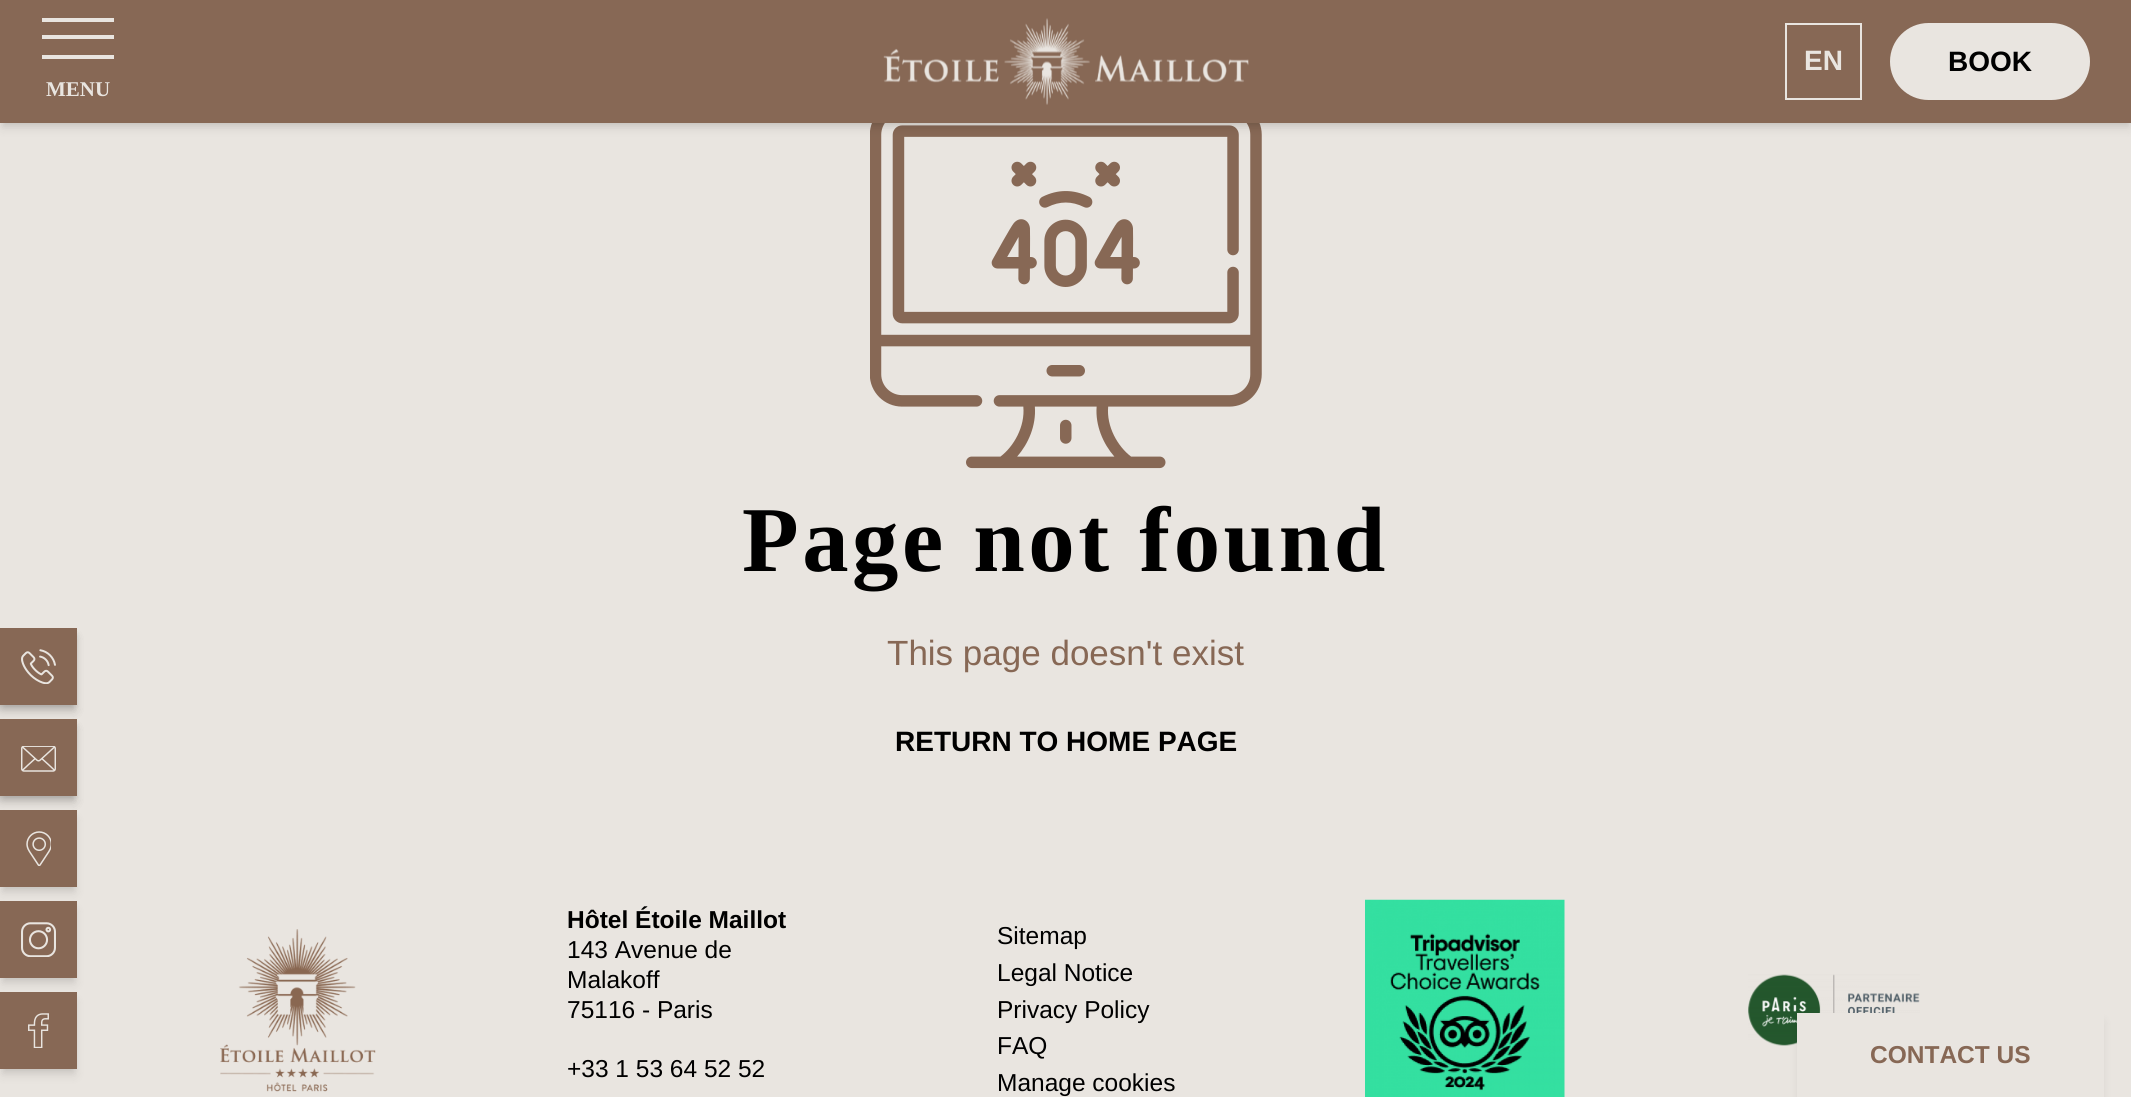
import math
import cairo

surface = cairo.ImageSurface(cairo.FORMAT_RGB24, 2131, 1097)
ctx = cairo.Context(surface)
options = cairo.FontOptions()
options.set_hint_metrics(cairo.HINT_METRICS_OFF)
options.set_hint_style(cairo.HINT_STYLE_NONE)
ctx.set_font_options(options)
ctx.set_miter_limit(4)


def spaced_text(x, y, s, letter, word):
    ctx.move_to(x, y)
    for ch in s:
        ctx.show_text(ch)
        ctx.rel_move_to(letter + word * (ch == ' '), 0)


def round_rect(x, y, w, h, r):
    ctx.new_sub_path()
    for i, (u, v) in enumerate([(x + w - r, y + h - r), (x + r, y + h - r), (x + r, y + r), (x + w - r, y + r)]):
        ctx.arc(u, v, r, i * math.pi / 2, (i + 1) * math.pi / 2)
    ctx.close_path()


def shadow(x, y, w, h, r, blur, alpha):
    ctx.push_group_with_content(cairo.CONTENT_ALPHA)
    ctx.set_operator(cairo.OPERATOR_SOURCE)
    for i in range(15, -16, -2):
        e = blur * i / 6
        if min(w, h) + 2 * e > 0:
            ctx.set_source_rgba(0, 0, 0, alpha * math.erfc((i - 1) / 8.5) / 2)
            round_rect(x - e, y - e, w + 2 * e, h + 2 * e, max(0, min(r + e + blur * .6, min(w, h) / 2 + e)))
            ctx.fill()
    ctx.mask(ctx.pop_group())


def picture(path, x, y, w, h):
    ctx.save()
    ctx.set_source_surface(cairo.ImageSurface.create_from_png(path), x, y)
    ctx.rectangle(x, y, w, h)
    ctx.fill()
    ctx.restore()


ctx.set_source_rgb(0.914, 0.898, 0.878)
ctx.paint()
picture("img7.png", 870, 123, 392, 346)
ctx.set_source_rgb(0, 0, 0)
shadow(4, 7, 2124, 116, 0, 3.5, 0.1)
shadow(2, 9, 2128, 119, 0, 5, 0.1)
ctx.set_source_rgb(0.529, 0.408, 0.333)
ctx.rectangle(0, 0, 2131, 123)
ctx.fill()
picture("img1.png", 883, 18, 366, 87)
ctx.rectangle(1786, 24, 75, 75)
ctx.set_source_rgb(0.914, 0.898, 0.878)
ctx.stroke()
ctx.select_font_face("Liberation Sans", cairo.FONT_SLANT_NORMAL, cairo.FONT_WEIGHT_BOLD)
ctx.set_font_size(28)
ctx.move_to(1804, 70)
ctx.show_text("EN")
round_rect(1891, 24, 198, 75, 37.5)
ctx.fill_preserve()
ctx.stroke()
ctx.set_source_rgb(0, 0, 0)
ctx.move_to(1948, 71)
ctx.show_text("BOOK")
ctx.set_source_rgb(0.914, 0.898, 0.878)
ctx.rectangle(42, 18, 72, 4)
ctx.fill()
ctx.rectangle(42, 35, 72, 4)
ctx.fill()
ctx.rectangle(42, 55, 72, 4)
ctx.fill()
ctx.select_font_face("Liberation Serif", cairo.FONT_SLANT_NORMAL, cairo.FONT_WEIGHT_BOLD)
ctx.set_font_size(21)
ctx.move_to(46, 96)
ctx.show_text("MENU")
ctx.set_source_rgb(0, 0, 0)
shadow(-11, 635, 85, 70, 0, 3.5, 0.1)
shadow(-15, 637, 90, 74, 0, 5, 0.1)
shadow(4, 635, 70, 70, 0, 3.5, 0.1)
shadow(2, 637, 73, 74, 0, 5, 0.1)
ctx.set_source_rgb(0.529, 0.408, 0.333)
ctx.rectangle(0, 628, 77, 77)
ctx.fill()
picture("img2.png", 21, 649, 35, 35)
ctx.set_source_rgb(0, 0, 0)
shadow(-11, 726, 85, 70, 0, 3.5, 0.1)
shadow(-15, 728, 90, 74, 0, 5, 0.1)
shadow(4, 726, 70, 70, 0, 3.5, 0.1)
shadow(2, 728, 73, 74, 0, 5, 0.1)
ctx.set_source_rgb(0.529, 0.408, 0.333)
ctx.rectangle(0, 719, 77, 77)
ctx.fill()
picture("img3.png", 21, 746, 35, 26)
ctx.set_source_rgb(0, 0, 0)
shadow(4, 817, 70, 70, 0, 3.5, 0.1)
shadow(2, 819, 73, 74, 0, 5, 0.1)
ctx.set_source_rgb(0.529, 0.408, 0.333)
ctx.rectangle(0, 810, 77, 77)
ctx.fill()
picture("img4.png", 26, 831, 25, 35)
ctx.set_source_rgb(0, 0, 0)
shadow(4, 908, 70, 70, 0, 3.5, 0.1)
shadow(2, 910, 73, 74, 0, 5, 0.1)
ctx.set_source_rgb(0.529, 0.408, 0.333)
ctx.rectangle(0, 901, 77, 77)
ctx.fill()
picture("img5.png", 21, 922, 35, 35)
ctx.set_source_rgb(0, 0, 0)
shadow(4, 999, 70, 70, 0, 3.5, 0.1)
shadow(2, 1001, 73, 74, 0, 5, 0.1)
ctx.set_source_rgb(0.529, 0.408, 0.333)
ctx.rectangle(0, 992, 77, 77)
ctx.fill()
picture("img6.png", 28, 1013, 21, 35)
ctx.set_font_size(92.75)
ctx.set_source_rgb(0, 0, 0)
spaced_text(742, 571, "Page not found", 3.5, 0)
ctx.select_font_face("Liberation Sans")
ctx.set_font_size(35)
ctx.set_source_rgb(0.529, 0.408, 0.333)
ctx.move_to(887, 665)
ctx.show_text("This page doesn't exist")
ctx.select_font_face("Liberation Sans", cairo.FONT_SLANT_NORMAL, cairo.FONT_WEIGHT_BOLD)
ctx.set_font_size(28)
ctx.set_source_rgb(0, 0, 0)
ctx.move_to(895, 751)
ctx.show_text("RETURN TO HOME PAGE")
picture("img8.png", 220, 929, 156, 163)
ctx.set_font_size(24.5)
ctx.move_to(567, 928)
ctx.show_text("Hôtel Étoile Maillot")
ctx.select_font_face("Liberation Sans")
ctx.move_to(567, 958)
ctx.show_text("143 Avenue de")
ctx.move_to(567, 988)
ctx.show_text("Malakoff")
ctx.move_to(567, 1018)
ctx.show_text("75116 - Paris")
ctx.move_to(567, 1077)
ctx.show_text("+33 1 53 64 52 52")
ctx.move_to(997, 944)
ctx.show_text("Sitemap")
ctx.move_to(997, 981)
ctx.show_text("Legal Notice")
ctx.move_to(997, 1018)
ctx.show_text("Privacy Policy")
ctx.move_to(997, 1054)
ctx.show_text("FAQ")
ctx.move_to(997, 1091)
ctx.show_text("Manage cookies")
picture("img9.png", 1365, 899, 200, 198)
picture("img10.png", 1748, 974, 172, 72)
ctx.set_source_rgb(0, 0, 0)
shadow(1799, 1022, 303, 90, 0, 5, 0.1)
ctx.set_source_rgb(0.914, 0.898, 0.878)
ctx.rectangle(1797, 1013, 307, 84)
ctx.fill()
ctx.select_font_face("Liberation Sans", cairo.FONT_SLANT_NORMAL, cairo.FONT_WEIGHT_BOLD)
ctx.set_source_rgb(0.529, 0.408, 0.333)
ctx.move_to(1870, 1063)
ctx.show_text("CONTACT US")
surface.write_to_png("page.png")
